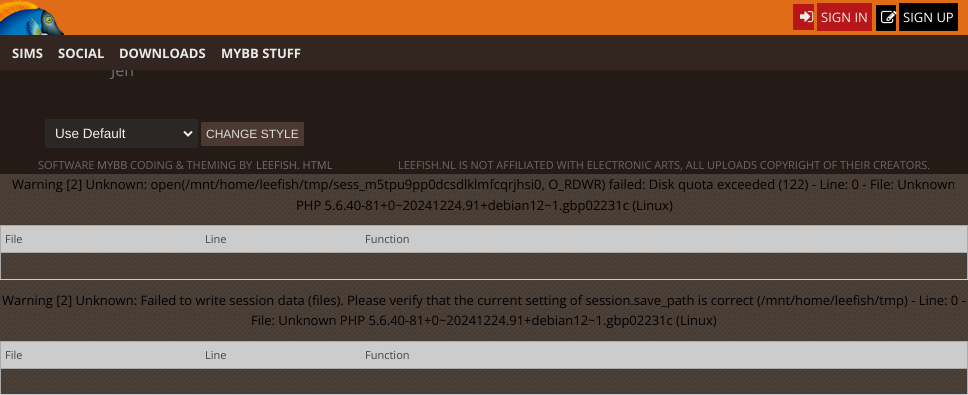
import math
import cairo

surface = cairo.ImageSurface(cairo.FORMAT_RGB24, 968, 395)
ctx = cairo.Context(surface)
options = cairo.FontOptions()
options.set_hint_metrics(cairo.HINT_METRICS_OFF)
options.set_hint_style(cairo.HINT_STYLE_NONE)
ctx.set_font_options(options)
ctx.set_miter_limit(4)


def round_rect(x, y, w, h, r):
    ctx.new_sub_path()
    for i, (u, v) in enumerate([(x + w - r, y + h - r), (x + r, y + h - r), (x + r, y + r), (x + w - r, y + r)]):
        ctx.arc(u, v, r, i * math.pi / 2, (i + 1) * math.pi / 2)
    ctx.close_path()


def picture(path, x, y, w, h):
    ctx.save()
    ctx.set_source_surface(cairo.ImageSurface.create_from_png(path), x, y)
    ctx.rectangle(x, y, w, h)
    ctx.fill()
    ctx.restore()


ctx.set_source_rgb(1, 1, 1)
ctx.paint()
picture("img1.png", 0, 174, 968, 220)
ctx.set_source_rgb(0.882, 0.424, 0.094)
ctx.rectangle(0, 0, 968, 35)
ctx.fill()
picture("img2.png", 0, 0, 65, 35)
ctx.set_source_rgb(0.722, 0.09, 0.09)
ctx.new_path()
ctx.move_to(794, 4)
ctx.line_to(814, 4)
ctx.line_to(814, 30)
ctx.line_to(794, 30)
ctx.curve_to(793.5, 30, 793, 29.5, 793, 29)
ctx.line_to(793, 5)
ctx.curve_to(793, 4.5, 793.5, 4, 794, 4)
ctx.close_path()
ctx.fill()
ctx.new_path()
ctx.move_to(817, 3)
ctx.line_to(871, 3)
ctx.curve_to(871.5, 3, 872, 3.5, 872, 4)
ctx.line_to(872, 30)
ctx.curve_to(872, 30.5, 871.5, 31, 871, 31)
ctx.line_to(817, 31)
ctx.close_path()
ctx.fill()
picture("img3.png", 800, 10, 14, 13)
ctx.select_font_face("Open Sans")
ctx.set_font_size(13)
ctx.set_source_rgb(0.937, 0.937, 0.937)
ctx.move_to(821, 22)
ctx.show_text("SIGN IN")
ctx.set_source_rgb(0, 0, 0)
ctx.new_path()
ctx.move_to(877, 5)
ctx.line_to(896, 5)
ctx.line_to(896, 31)
ctx.line_to(877, 31)
ctx.curve_to(876.5, 31, 876, 30.5, 876, 30)
ctx.line_to(876, 6)
ctx.curve_to(876, 5.5, 876.5, 5, 877, 5)
ctx.close_path()
ctx.fill()
ctx.new_path()
ctx.move_to(899, 3)
ctx.line_to(957, 3)
ctx.curve_to(957.5, 3, 958, 3.5, 958, 4)
ctx.line_to(958, 30)
ctx.curve_to(958, 30.5, 957.5, 31, 957, 31)
ctx.line_to(899, 31)
ctx.close_path()
ctx.fill()
picture("img4.png", 881, 10, 16, 14)
ctx.set_source_rgb(1, 1, 1)
ctx.move_to(903, 22)
ctx.show_text("SIGN UP")
ctx.set_source_rgb(0.145, 0.106, 0.086)
ctx.rectangle(0, 70, 968, 104)
ctx.fill()
ctx.set_font_size(16)
ctx.set_source_rgb(0.439, 0.439, 0.439)
ctx.move_to(111, 76)
ctx.show_text("Jen")
ctx.set_source_rgb(0.2, 0.149, 0.125)
ctx.rectangle(0, 35, 968, 35)
ctx.fill()
ctx.select_font_face("Open Sans", cairo.FONT_SLANT_NORMAL, cairo.FONT_WEIGHT_BOLD)
ctx.set_font_size(13)
ctx.set_source_rgb(0.914, 0.914, 0.914)
ctx.move_to(12, 58)
ctx.show_text("SIMS")
ctx.move_to(58, 58)
ctx.show_text("SOCIAL")
ctx.move_to(119, 58)
ctx.show_text("DOWNLOADS")
ctx.move_to(221, 58)
ctx.show_text("MYBB STUFF")
ctx.set_source_rgb(0.173, 0.149, 0.141)
round_rect(46, 120, 151, 27, 1)
ctx.fill_preserve()
ctx.set_source_rgb(0.161, 0.161, 0.161)
ctx.stroke()
ctx.new_path()
ctx.move_to(184, 131.5)
ctx.line_to(188, 135.5)
ctx.line_to(192, 131.5)
ctx.set_source_rgb(0.937, 0.937, 0.937)
ctx.stroke()
ctx.select_font_face("Liberation Sans")
ctx.set_font_size(13.5)
ctx.move_to(55, 138)
ctx.show_text("Use Default")
ctx.set_source_rgb(0.298, 0.227, 0.196)
round_rect(201, 122, 103, 24, 1)
ctx.fill()
ctx.set_font_size(12)
ctx.set_source_rgb(0.859, 0.859, 0.859)
ctx.move_to(206, 138)
ctx.show_text("CHANGE STYLE")
ctx.select_font_face("Open Sans")
ctx.set_font_size(11)
ctx.set_source_rgb(0.408, 0.408, 0.408)
ctx.move_to(38, 169)
ctx.show_text("SOFTWARE")
ctx.set_source_rgb(0.439, 0.439, 0.439)
ctx.move_to(97, 169)
ctx.show_text("MYBB")
ctx.set_source_rgb(0.408, 0.408, 0.408)
ctx.move_to(130, 169)
ctx.show_text("CODING & THEMING BY")
ctx.set_source_rgb(0.439, 0.439, 0.439)
ctx.move_to(256, 169)
ctx.show_text("LEEFISH. HTML")
ctx.set_source_rgb(0.408, 0.408, 0.408)
ctx.move_to(398, 169)
ctx.show_text("LEEFISH.NL IS NOT AFFILIATED WITH ELECTRONIC ARTS, ALL UPLOADS COPYRIGHT OF THEIR CREATORS.")
ctx.set_font_size(13)
ctx.set_source_rgb(0, 0, 0)
ctx.move_to(12, 189)
ctx.show_text("Warning [2] Unknown: open(/mnt/home/leefish/tmp/sess_m5tpu9pp0dcsdlklmfcqrjhsi0, O_RDWR) failed: Disk quota exceeded (122) - Line: 0 - File: Unknown")
ctx.move_to(296, 210)
ctx.show_text("PHP 5.6.40-81+0~20241224.91+debian12~1.gbp02231c (Linux)")
ctx.set_source_rgb(0.667, 0.667, 0.667)
ctx.rectangle(0, 225, 968, 1)
ctx.fill()
ctx.rectangle(967, 225, 1, 55)
ctx.fill()
ctx.rectangle(0, 225, 1, 55)
ctx.fill()
ctx.set_source_rgb(0.8, 0.8, 0.8)
ctx.rectangle(1, 226, 966, 26)
ctx.fill()
ctx.set_font_size(11)
ctx.set_source_rgb(0.267, 0.267, 0.267)
ctx.move_to(5, 243)
ctx.show_text("File")
ctx.move_to(205, 243)
ctx.show_text("Line")
ctx.set_source_rgb(0.667, 0.667, 0.667)
ctx.rectangle(0, 252, 968, 1)
ctx.fill()
ctx.set_source_rgb(0.267, 0.267, 0.267)
ctx.move_to(365, 243)
ctx.show_text("Function")
ctx.set_source_rgb(0.8, 0.8, 0.8)
ctx.rectangle(0, 279, 968, 1)
ctx.fill()
ctx.set_font_size(13)
ctx.set_source_rgb(0, 0, 0)
ctx.move_to(2, 305)
ctx.show_text("Warning [2] Unknown: Failed to write session data (files). Please verify that the current setting of session.save_path is correct (/mnt/home/leefish/tmp) - Line: 0 -")
ctx.move_to(251, 325)
ctx.show_text("File: Unknown PHP 5.6.40-81+0~20241224.91+debian12~1.gbp02231c (Linux)")
ctx.set_source_rgb(0.667, 0.667, 0.667)
ctx.rectangle(0, 341, 968, 1)
ctx.fill()
ctx.rectangle(967, 341, 1, 54)
ctx.fill()
ctx.rectangle(0, 341, 1, 54)
ctx.fill()
ctx.set_source_rgb(0.8, 0.8, 0.8)
ctx.rectangle(1, 342, 966, 26)
ctx.fill()
ctx.set_font_size(11)
ctx.set_source_rgb(0.267, 0.267, 0.267)
ctx.move_to(5, 359)
ctx.show_text("File")
ctx.move_to(205, 359)
ctx.show_text("Line")
ctx.set_source_rgb(0.667, 0.667, 0.667)
ctx.rectangle(0, 368, 968, 1)
ctx.fill()
ctx.set_source_rgb(0.267, 0.267, 0.267)
ctx.move_to(365, 359)
ctx.show_text("Function")
ctx.set_source_rgb(0.8, 0.8, 0.8)
ctx.rectangle(0, 394, 968, 1)
ctx.fill()
surface.write_to_png("page.png")
